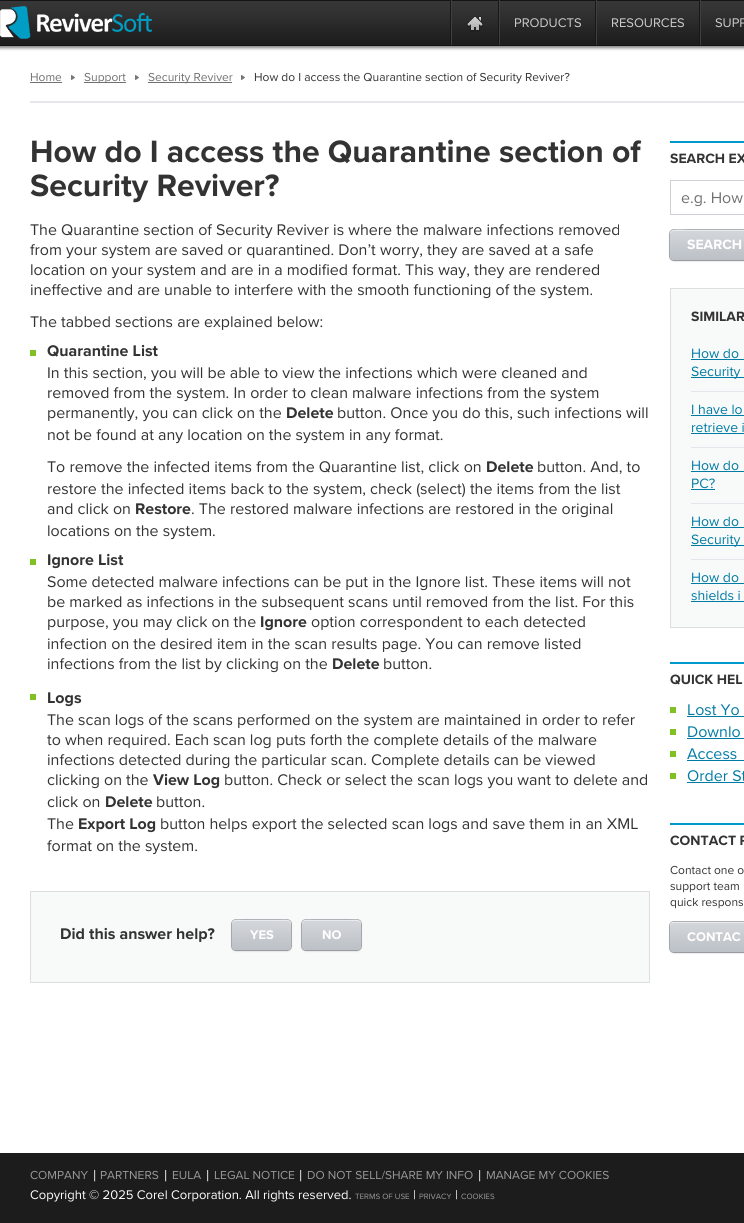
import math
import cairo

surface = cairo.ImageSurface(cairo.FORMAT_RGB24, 744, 1223)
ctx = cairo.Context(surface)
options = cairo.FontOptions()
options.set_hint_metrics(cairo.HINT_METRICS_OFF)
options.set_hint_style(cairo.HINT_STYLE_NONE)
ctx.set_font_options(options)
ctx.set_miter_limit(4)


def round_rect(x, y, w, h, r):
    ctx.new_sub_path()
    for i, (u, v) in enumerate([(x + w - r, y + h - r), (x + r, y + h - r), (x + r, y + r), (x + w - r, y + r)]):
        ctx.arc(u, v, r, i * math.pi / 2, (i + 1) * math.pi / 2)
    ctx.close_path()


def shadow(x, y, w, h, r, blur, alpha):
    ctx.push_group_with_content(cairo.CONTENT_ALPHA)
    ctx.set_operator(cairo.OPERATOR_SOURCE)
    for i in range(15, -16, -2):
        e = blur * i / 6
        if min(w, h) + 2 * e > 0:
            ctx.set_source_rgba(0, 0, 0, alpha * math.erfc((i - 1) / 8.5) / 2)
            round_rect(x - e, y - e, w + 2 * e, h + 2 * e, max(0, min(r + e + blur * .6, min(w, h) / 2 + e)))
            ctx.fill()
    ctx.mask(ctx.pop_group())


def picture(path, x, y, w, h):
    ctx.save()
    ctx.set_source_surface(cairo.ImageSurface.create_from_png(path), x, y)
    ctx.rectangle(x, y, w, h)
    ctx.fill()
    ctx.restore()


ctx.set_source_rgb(1, 1, 1)
ctx.paint()
picture("img1.png", 0, 0, 744, 51)
picture("img2.png", 0, 6, 152, 33)
ctx.set_source_rgb(0.09, 0.09, 0.09)
ctx.rectangle(450, 0, 1, 45)
ctx.fill()
ctx.rectangle(498, 0, 1, 45)
ctx.fill()
ctx.set_source_rgb(0.251, 0.251, 0.251)
ctx.rectangle(451, 0, 1, 45)
ctx.fill()
picture("img3.png", 467, 16, 16, 16)
ctx.set_source_rgb(0.09, 0.09, 0.09)
ctx.rectangle(595, 0, 1, 45)
ctx.fill()
ctx.set_source_rgb(0.251, 0.251, 0.251)
ctx.rectangle(499, 0, 1, 45)
ctx.fill()
ctx.select_font_face("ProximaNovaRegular")
ctx.set_font_size(13)
ctx.set_source_rgb(0.8, 0.8, 0.8)
ctx.move_to(514, 27)
ctx.show_text("PRODUCTS")
ctx.set_source_rgb(0.09, 0.09, 0.09)
ctx.rectangle(699, 0, 1, 45)
ctx.fill()
ctx.set_source_rgb(0.251, 0.251, 0.251)
ctx.rectangle(596, 0, 1, 45)
ctx.fill()
ctx.set_source_rgb(0.8, 0.8, 0.8)
ctx.move_to(611, 27)
ctx.show_text("RESOURCES")
ctx.set_source_rgb(0.251, 0.251, 0.251)
ctx.rectangle(700, 0, 1, 45)
ctx.fill()
ctx.set_source_rgb(0.8, 0.8, 0.8)
ctx.move_to(715, 27)
ctx.show_text("SUPP")
ctx.set_source_rgb(0.894, 0.902, 0.918)
ctx.rectangle(30, 101, 714, 2)
ctx.fill()
ctx.set_font_size(12)
ctx.set_source_rgb(0.443, 0.443, 0.443)
ctx.move_to(30, 81)
ctx.show_text("Home")
ctx.rectangle(30, 82, 32, 1)
ctx.fill()
picture("img4.png", 71, 75, 4, 5)
ctx.rectangle(84, 82, 42, 1)
ctx.fill()
ctx.move_to(84, 81)
ctx.show_text("Support")
picture("img4.png", 135, 75, 4, 5)
ctx.rectangle(148, 82, 84, 1)
ctx.fill()
ctx.move_to(148, 81)
ctx.show_text("Security Reviver")
picture("img4.png", 241, 75, 4, 5)
ctx.set_source_rgb(0.2, 0.2, 0.2)
ctx.move_to(254, 81)
ctx.show_text("How do I access the Quarantine section of Security Reviver?")
ctx.select_font_face("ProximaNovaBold")
ctx.set_font_size(32)
ctx.move_to(30, 162)
ctx.show_text("How do I access the Quarantine section of")
ctx.move_to(30, 196)
ctx.show_text("Security Reviver?")
ctx.select_font_face("ProximaNovaRegular")
ctx.set_font_size(16)
ctx.move_to(30, 235)
ctx.show_text("The Quarantine section of Security Reviver is where the malware infections removed")
ctx.move_to(30, 255)
ctx.show_text("from your system are saved or quarantined. Don’t worry, they are saved at a safe")
ctx.move_to(30, 275)
ctx.show_text("location on your system and are in a modified format. This way, they are rendered")
ctx.move_to(30, 295)
ctx.show_text("ineffective and are unable to interfere with the smooth functioning of the system.")
ctx.move_to(30, 327)
ctx.show_text("The tabbed sections are explained below:")
ctx.set_source_rgb(0.502, 0.761, 0.141)
ctx.rectangle(30, 350, 6, 6)
ctx.fill()
ctx.select_font_face("ProximaNovaBold")
ctx.set_source_rgb(0.2, 0.2, 0.2)
ctx.move_to(47, 356)
ctx.show_text("Quarantine List")
ctx.select_font_face("ProximaNovaRegular")
ctx.move_to(47, 378)
ctx.show_text("In this section, you will be able to view the infections which were cleaned and")
ctx.move_to(47, 398)
ctx.show_text("removed from the system. In order to clean malware infections from the system")
ctx.move_to(47, 418)
ctx.show_text("permanently, you can click on the")
ctx.select_font_face("ProximaNovaBold")
ctx.move_to(286, 418)
ctx.show_text("Delete")
ctx.select_font_face("ProximaNovaRegular")
ctx.move_to(337, 418)
ctx.show_text("button. Once you do this, such infections will")
ctx.move_to(47, 440)
ctx.show_text("not be found at any location on the system in any format.")
ctx.move_to(47, 472)
ctx.show_text("To remove the infected items from the Quarantine list, click on")
ctx.select_font_face("ProximaNovaBold")
ctx.move_to(486, 472)
ctx.show_text("Delete")
ctx.select_font_face("ProximaNovaRegular")
ctx.move_to(537, 472)
ctx.show_text("button. And, to")
ctx.move_to(47, 494)
ctx.show_text("restore the infected items back to the system, check (select) the items from the list")
ctx.move_to(47, 514)
ctx.show_text("and click on")
ctx.select_font_face("ProximaNovaBold")
ctx.move_to(135, 514)
ctx.show_text("Restore")
ctx.select_font_face("ProximaNovaRegular")
ctx.move_to(191, 514)
ctx.show_text(". The restored malware infections are restored in the original")
ctx.move_to(47, 536)
ctx.show_text("locations on the system.")
ctx.set_source_rgb(0.502, 0.761, 0.141)
ctx.rectangle(30, 559, 6, 6)
ctx.fill()
ctx.select_font_face("ProximaNovaBold")
ctx.set_source_rgb(0.2, 0.2, 0.2)
ctx.move_to(47, 565)
ctx.show_text("Ignore List")
ctx.select_font_face("ProximaNovaRegular")
ctx.move_to(47, 587)
ctx.show_text("Some detected malware infections can be put in the Ignore list. These items will not")
ctx.move_to(47, 607)
ctx.show_text("be marked as infections in the subsequent scans until removed from the list. For this")
ctx.move_to(47, 627)
ctx.show_text("purpose, you may click on the")
ctx.select_font_face("ProximaNovaBold")
ctx.move_to(260, 627)
ctx.show_text("Ignore")
ctx.select_font_face("ProximaNovaRegular")
ctx.move_to(311, 627)
ctx.show_text("option correspondent to each detected")
ctx.move_to(47, 649)
ctx.show_text("infection on the desired item in the scan results page. You can remove listed")
ctx.move_to(47, 669)
ctx.show_text("infections from the list by clicking on the")
ctx.select_font_face("ProximaNovaBold")
ctx.move_to(332, 669)
ctx.show_text("Delete")
ctx.select_font_face("ProximaNovaRegular")
ctx.move_to(383, 669)
ctx.show_text("button.")
ctx.set_source_rgb(0.502, 0.761, 0.141)
ctx.rectangle(30, 694, 6, 6)
ctx.fill()
ctx.select_font_face("ProximaNovaBold")
ctx.set_source_rgb(0.2, 0.2, 0.2)
ctx.move_to(47, 703)
ctx.show_text("Logs")
ctx.select_font_face("ProximaNovaRegular")
ctx.move_to(47, 725)
ctx.show_text("The scan logs of the scans performed on the system are maintained in order to refer")
ctx.move_to(47, 745)
ctx.show_text("to when required. Each scan log puts forth the complete details of the malware")
ctx.move_to(47, 765)
ctx.show_text("infections detected during the particular scan. Complete details can be viewed")
ctx.move_to(47, 785)
ctx.show_text("clicking on the")
ctx.select_font_face("ProximaNovaBold")
ctx.move_to(153, 785)
ctx.show_text("View Log")
ctx.select_font_face("ProximaNovaRegular")
ctx.move_to(224, 785)
ctx.show_text("button. Check or select the scan logs you want to delete and")
ctx.move_to(47, 807)
ctx.show_text("click on")
ctx.select_font_face("ProximaNovaBold")
ctx.move_to(105, 807)
ctx.show_text("Delete")
ctx.select_font_face("ProximaNovaRegular")
ctx.move_to(156, 807)
ctx.show_text("button.")
ctx.move_to(47, 829)
ctx.show_text("The")
ctx.select_font_face("ProximaNovaBold")
ctx.move_to(78, 829)
ctx.show_text("Export Log")
ctx.select_font_face("ProximaNovaRegular")
ctx.move_to(160, 829)
ctx.show_text("button helps export the selected scan logs and save them in an XML")
ctx.move_to(47, 851)
ctx.show_text("format on the system.")
ctx.set_source_rgb(0.969, 0.973, 0.976)
ctx.rectangle(30.5, 891.5, 619, 91)
ctx.fill_preserve()
ctx.set_source_rgb(0.871, 0.871, 0.886)
ctx.set_line_width(1)
ctx.stroke()
ctx.select_font_face("ProximaNovaBold")
ctx.set_source_rgb(0.2, 0.2, 0.2)
ctx.move_to(60, 939)
ctx.show_text("Did this answer help?")
round_rect(231.5, 919.5, 60, 31, 4.5)
ctx.set_source_rgb(0.686, 0.702, 0.722)
ctx.stroke()
ctx.set_source_rgb(0, 0, 0)
shadow(232, 921, 59, 30, 4, 1, 0.19)
picture("img5.png", 232, 920, 59, 30)
ctx.set_source_rgba(1, 1, 1, 0.5)
ctx.new_path()
ctx.move_to(236, 921)
ctx.line_to(287, 921)
ctx.curve_to(289, 921, 291, 923, 291, 925)
ctx.curve_to(291, 918, 284, 920, 278, 920)
ctx.line_to(244, 920)
ctx.curve_to(239, 920, 232, 918, 232, 925)
ctx.curve_to(232, 923, 234, 921, 236, 921)
ctx.close_path()
ctx.fill()
ctx.set_font_size(13)
ctx.set_source_rgb(1, 1, 1)
ctx.move_to(250, 939)
ctx.show_text("YES")
round_rect(301.5, 919.5, 60, 31, 4.5)
ctx.set_source_rgb(0.686, 0.702, 0.722)
ctx.stroke()
ctx.set_source_rgb(0, 0, 0)
shadow(302, 921, 59, 30, 4, 1, 0.19)
picture("img5.png", 302, 920, 59, 30)
ctx.set_source_rgba(1, 1, 1, 0.5)
ctx.new_path()
ctx.move_to(306, 921)
ctx.line_to(357, 921)
ctx.curve_to(359, 921, 361, 923, 361, 925)
ctx.curve_to(361, 918, 354, 920, 348, 920)
ctx.line_to(314, 920)
ctx.curve_to(309, 920, 302, 918, 302, 925)
ctx.curve_to(302, 923, 304, 921, 306, 921)
ctx.close_path()
ctx.fill()
ctx.set_source_rgb(1, 1, 1)
ctx.move_to(322, 939)
ctx.show_text("NO")
ctx.set_source_rgb(0, 0.6, 0.8)
ctx.rectangle(670, 141, 74, 2)
ctx.fill()
ctx.set_font_size(14)
ctx.set_source_rgb(0.2, 0.2, 0.2)
ctx.move_to(670, 163)
ctx.show_text("SEARCH EX")
ctx.rectangle(670.5, 180.5, 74, 34)
ctx.set_source_rgb(0.808, 0.824, 0.843)
ctx.stroke()
ctx.select_font_face("ProximaNovaRegular")
ctx.set_font_size(16)
ctx.set_source_rgb(0.443, 0.443, 0.443)
ctx.move_to(681, 203)
ctx.show_text("e.g. How")
round_rect(669.5, 229.5, 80, 31, 4.5)
ctx.set_source_rgb(0.686, 0.702, 0.722)
ctx.stroke()
ctx.set_source_rgb(0, 0, 0)
shadow(670, 231, 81, 30, 4, 1, 0.19)
picture("img6.png", 670, 230, 74, 30)
ctx.set_source_rgba(1, 1, 1, 0.5)
ctx.new_path()
ctx.move_to(674, 231)
ctx.line_to(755, 231)
ctx.curve_to(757, 231, 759, 233, 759, 235)
ctx.curve_to(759, 227, 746, 230, 742, 230)
ctx.line_to(688, 230)
ctx.curve_to(683, 230, 670, 227, 670, 235)
ctx.curve_to(670, 233, 672, 231, 674, 231)
ctx.close_path()
ctx.fill()
ctx.select_font_face("ProximaNovaBold")
ctx.set_font_size(14)
ctx.set_source_rgb(1, 1, 1)
ctx.move_to(687, 249)
ctx.show_text("SEARCH")
ctx.set_source_rgb(0.969, 0.973, 0.976)
ctx.rectangle(670.5, 288.5, 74, 339)
ctx.fill_preserve()
ctx.set_source_rgb(0.871, 0.871, 0.886)
ctx.stroke()
ctx.set_source_rgb(0.2, 0.2, 0.2)
ctx.move_to(691, 321)
ctx.show_text("SIMILAR")
ctx.select_font_face("ProximaNovaRegular")
ctx.set_source_rgb(0, 0.482, 0.643)
ctx.move_to(691, 358)
ctx.show_text("How do")
ctx.rectangle(691, 359, 53, 1)
ctx.fill()
ctx.rectangle(691, 377, 53, 1)
ctx.fill()
ctx.move_to(691, 376)
ctx.show_text("Security")
ctx.set_source_rgb(0.894, 0.902, 0.918)
ctx.rectangle(691, 391, 53, 1)
ctx.fill()
ctx.set_source_rgb(0, 0.482, 0.643)
ctx.move_to(691, 414)
ctx.show_text("I have lo")
ctx.rectangle(691, 415, 53, 1)
ctx.fill()
ctx.move_to(691, 432)
ctx.show_text("retrieve i")
ctx.rectangle(691, 433, 53, 1)
ctx.fill()
ctx.set_source_rgb(0.894, 0.902, 0.918)
ctx.rectangle(691, 447, 53, 1)
ctx.fill()
ctx.set_source_rgb(0, 0.482, 0.643)
ctx.move_to(691, 470)
ctx.show_text("How do")
ctx.rectangle(691, 471, 53, 1)
ctx.fill()
ctx.move_to(691, 488)
ctx.show_text("PC?")
ctx.rectangle(691, 489, 24, 1)
ctx.fill()
ctx.set_source_rgb(0.894, 0.902, 0.918)
ctx.rectangle(691, 503, 53, 1)
ctx.fill()
ctx.set_source_rgb(0, 0.482, 0.643)
ctx.move_to(691, 526)
ctx.show_text("How do")
ctx.rectangle(691, 527, 53, 1)
ctx.fill()
ctx.rectangle(691, 545, 53, 1)
ctx.fill()
ctx.move_to(691, 544)
ctx.show_text("Security")
ctx.set_source_rgb(0.894, 0.902, 0.918)
ctx.rectangle(691, 559, 53, 1)
ctx.fill()
ctx.set_source_rgb(0, 0.482, 0.643)
ctx.move_to(691, 582)
ctx.show_text("How do")
ctx.rectangle(691, 583, 53, 1)
ctx.fill()
ctx.move_to(691, 600)
ctx.show_text("shields i")
ctx.rectangle(691, 601, 53, 1)
ctx.fill()
ctx.set_source_rgb(0, 0.6, 0.8)
ctx.rectangle(670, 662, 74, 2)
ctx.fill()
ctx.select_font_face("ProximaNovaBold")
ctx.set_source_rgb(0.2, 0.2, 0.2)
ctx.move_to(670, 684)
ctx.show_text("QUICK HEL")
ctx.set_source_rgb(0.502, 0.761, 0.141)
ctx.rectangle(670, 707, 6, 6)
ctx.fill()
ctx.select_font_face("ProximaNovaRegular")
ctx.set_font_size(16)
ctx.set_source_rgb(0, 0.482, 0.643)
ctx.move_to(687, 715)
ctx.show_text("Lost Yo")
ctx.rectangle(687, 716, 57, 1)
ctx.fill()
ctx.set_source_rgb(0.502, 0.761, 0.141)
ctx.rectangle(670, 729, 6, 6)
ctx.fill()
ctx.set_source_rgb(0, 0.482, 0.643)
ctx.move_to(687, 737)
ctx.show_text("Downlo")
ctx.rectangle(687, 738, 57, 1)
ctx.fill()
ctx.set_source_rgb(0.502, 0.761, 0.141)
ctx.rectangle(670, 751, 6, 6)
ctx.fill()
ctx.set_source_rgb(0, 0.482, 0.643)
ctx.move_to(687, 759)
ctx.show_text("Access")
ctx.rectangle(687, 760, 57, 1)
ctx.fill()
ctx.set_source_rgb(0.502, 0.761, 0.141)
ctx.rectangle(670, 773, 6, 6)
ctx.fill()
ctx.set_source_rgb(0, 0.482, 0.643)
ctx.move_to(687, 781)
ctx.show_text("Order St")
ctx.rectangle(687, 782, 57, 1)
ctx.fill()
ctx.set_source_rgb(0, 0.6, 0.8)
ctx.rectangle(670, 823, 74, 2)
ctx.fill()
ctx.select_font_face("ProximaNovaBold")
ctx.set_font_size(14)
ctx.set_source_rgb(0.2, 0.2, 0.2)
ctx.move_to(670, 845)
ctx.show_text("CONTACT R")
ctx.select_font_face("ProximaNovaRegular")
ctx.set_font_size(12)
ctx.move_to(670, 874)
ctx.show_text("Contact one o")
ctx.move_to(670, 890)
ctx.show_text("support team")
ctx.move_to(670, 906)
ctx.show_text("quick respons")
round_rect(669.5, 921.5, 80, 31, 4.5)
ctx.set_source_rgb(0.686, 0.702, 0.722)
ctx.stroke()
ctx.set_source_rgb(0, 0, 0)
shadow(670, 923, 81, 30, 4, 1, 0.19)
picture("img6.png", 670, 922, 74, 30)
ctx.set_source_rgba(1, 1, 1, 0.5)
ctx.new_path()
ctx.move_to(674, 923)
ctx.line_to(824, 923)
ctx.curve_to(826, 923, 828, 925, 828, 927)
ctx.curve_to(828, 925, 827, 923, 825, 922)
ctx.line_to(673, 922)
ctx.curve_to(671, 923, 670, 925, 670, 927)
ctx.curve_to(670, 925, 672, 923, 674, 923)
ctx.close_path()
ctx.fill()
ctx.select_font_face("ProximaNovaBold")
ctx.set_font_size(13)
ctx.set_source_rgb(1, 1, 1)
ctx.move_to(687, 941)
ctx.show_text("CONTAC")
ctx.set_source_rgb(0.114, 0.11, 0.11)
ctx.rectangle(0, 1153, 744, 70)
ctx.fill()
ctx.select_font_face("ProximaNovaRegular")
ctx.set_font_size(12)
ctx.set_source_rgb(0.6, 0.6, 0.6)
ctx.move_to(30, 1179)
ctx.show_text("COMPANY")
ctx.set_font_size(16)
ctx.set_source_rgb(1, 1, 1)
ctx.move_to(93, 1181)
ctx.show_text("|")
ctx.set_font_size(12)
ctx.set_source_rgb(0.6, 0.6, 0.6)
ctx.move_to(100, 1179)
ctx.show_text("PARTNERS")
ctx.set_font_size(16)
ctx.set_source_rgb(1, 1, 1)
ctx.move_to(164, 1181)
ctx.show_text("|")
ctx.set_font_size(12)
ctx.set_source_rgb(0.6, 0.6, 0.6)
ctx.move_to(172, 1179)
ctx.show_text("EULA")
ctx.set_font_size(16)
ctx.set_source_rgb(1, 1, 1)
ctx.move_to(206, 1181)
ctx.show_text("|")
ctx.set_font_size(12)
ctx.set_source_rgb(0.6, 0.6, 0.6)
ctx.move_to(214, 1179)
ctx.show_text("LEGAL NOTICE")
ctx.set_font_size(16)
ctx.set_source_rgb(1, 1, 1)
ctx.move_to(299, 1181)
ctx.show_text("|")
ctx.set_font_size(12)
ctx.set_source_rgb(0.6, 0.6, 0.6)
ctx.move_to(307, 1179)
ctx.show_text("DO NOT SELL/SHARE MY INFO")
ctx.set_font_size(16)
ctx.set_source_rgb(1, 1, 1)
ctx.move_to(478, 1181)
ctx.show_text("|")
ctx.set_font_size(12)
ctx.set_source_rgb(0.6, 0.6, 0.6)
ctx.move_to(486, 1179)
ctx.show_text("MANAGE MY COOKIES")
ctx.set_font_size(13)
ctx.set_source_rgb(1, 1, 1)
ctx.move_to(30, 1199)
ctx.show_text("Copyright © 2025 Corel Corporation. All rights reserved.")
ctx.set_font_size(8)
ctx.set_source_rgb(0.6, 0.6, 0.6)
ctx.move_to(355, 1199)
ctx.show_text("TERMS OF USE")
ctx.set_font_size(13)
ctx.set_source_rgb(1, 1, 1)
ctx.move_to(413, 1199)
ctx.show_text("|")
ctx.set_font_size(8)
ctx.set_source_rgb(0.6, 0.6, 0.6)
ctx.move_to(419, 1199)
ctx.show_text("PRIVACY")
ctx.set_font_size(13)
ctx.set_source_rgb(1, 1, 1)
ctx.move_to(455, 1199)
ctx.show_text("|")
ctx.set_font_size(8)
ctx.set_source_rgb(0.6, 0.6, 0.6)
ctx.move_to(461, 1199)
ctx.show_text("COOKIES")
surface.write_to_png("page.png")
